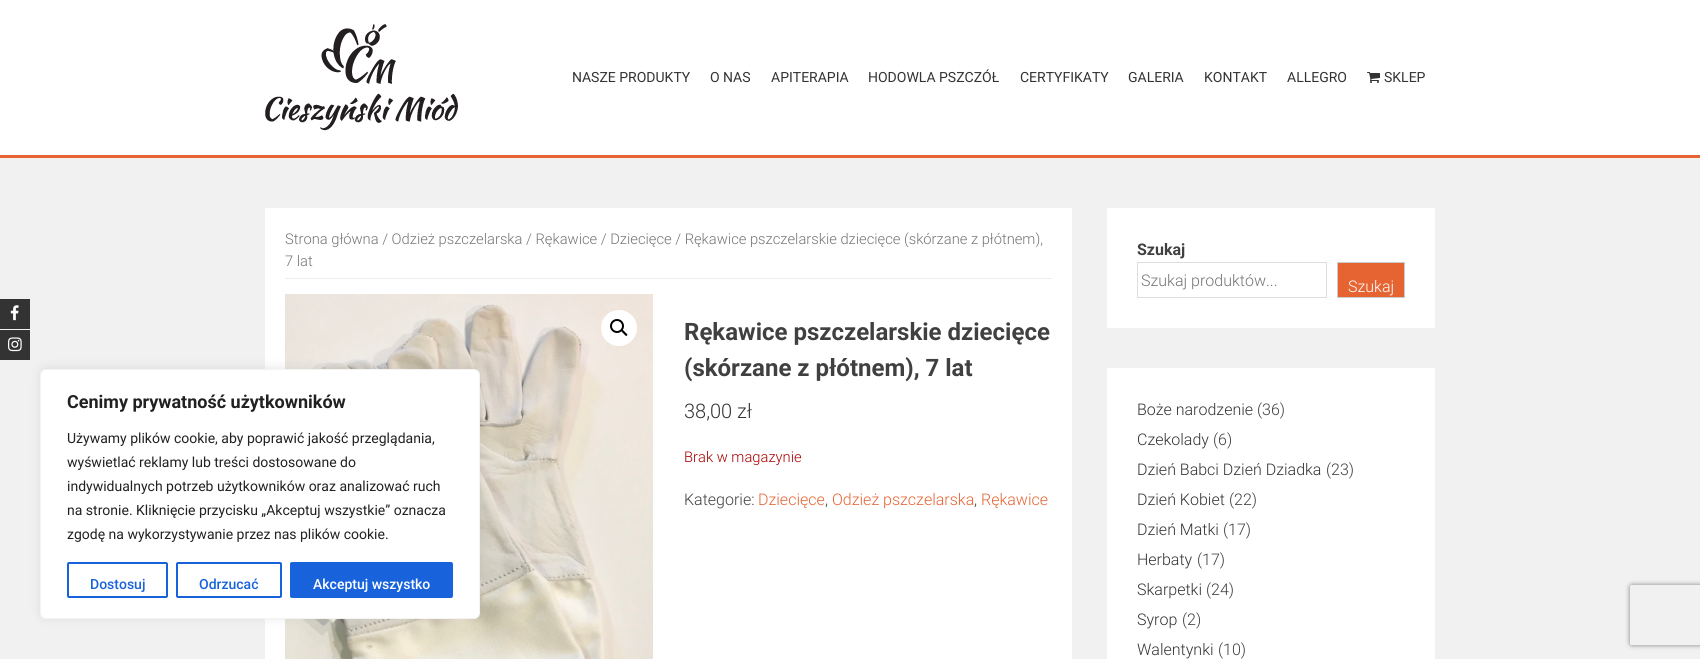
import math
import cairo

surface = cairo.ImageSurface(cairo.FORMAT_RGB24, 1700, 659)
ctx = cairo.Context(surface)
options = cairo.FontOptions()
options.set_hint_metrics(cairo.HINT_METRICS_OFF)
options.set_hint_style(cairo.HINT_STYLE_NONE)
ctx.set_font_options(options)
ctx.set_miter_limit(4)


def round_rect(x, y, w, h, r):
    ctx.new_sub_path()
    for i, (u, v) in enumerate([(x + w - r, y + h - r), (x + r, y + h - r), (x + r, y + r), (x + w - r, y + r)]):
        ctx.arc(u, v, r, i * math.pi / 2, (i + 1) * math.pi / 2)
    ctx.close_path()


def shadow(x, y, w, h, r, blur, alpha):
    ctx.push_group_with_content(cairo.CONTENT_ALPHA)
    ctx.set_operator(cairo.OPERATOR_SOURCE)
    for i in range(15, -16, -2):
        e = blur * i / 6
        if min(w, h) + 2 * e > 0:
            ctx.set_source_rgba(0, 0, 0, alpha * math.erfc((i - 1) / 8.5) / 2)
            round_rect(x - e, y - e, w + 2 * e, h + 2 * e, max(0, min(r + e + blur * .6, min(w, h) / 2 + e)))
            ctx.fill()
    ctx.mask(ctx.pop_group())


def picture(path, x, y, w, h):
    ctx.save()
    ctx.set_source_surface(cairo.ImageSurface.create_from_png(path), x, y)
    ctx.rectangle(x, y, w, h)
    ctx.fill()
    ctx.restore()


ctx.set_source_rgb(0.945, 0.945, 0.945)
ctx.paint()
ctx.set_source_rgb(0.2, 0.2, 0.2)
ctx.rectangle(0, 330, 30, 30)
ctx.fill()
ctx.set_source_rgb(1, 1, 1)
ctx.rectangle(265, 208, 807, 451)
ctx.fill()
picture("img5.png", 285, 294, 368, 365)
ctx.set_source_rgb(0.675, 0.671, 0.671)
shadow(40, 368, 440, 250, 6, 5, 0.3)
ctx.set_source_rgb(1, 1, 1)
round_rect(40.5, 369.5, 439, 249, 5.5)
ctx.fill_preserve()
ctx.set_source_rgb(0.957, 0.957, 0.957)
ctx.set_line_width(1)
ctx.stroke()
ctx.select_font_face("Roboto", cairo.FONT_SLANT_NORMAL, cairo.FONT_WEIGHT_BOLD)
ctx.set_font_size(18)
ctx.set_source_rgb(0.129, 0.129, 0.129)
ctx.move_to(67, 408)
ctx.show_text("Cenimy prywatność użytkowników")
ctx.select_font_face("Roboto")
ctx.set_font_size(14)
ctx.move_to(67, 443)
ctx.show_text("Używamy plików cookie, aby poprawić jakość przeglądania,")
ctx.move_to(67, 467)
ctx.show_text("wyświetlać reklamy lub treści dostosowane do")
ctx.move_to(67, 491)
ctx.show_text("indywidualnych potrzeb użytkowników oraz analizować ruch")
ctx.move_to(67, 515)
ctx.show_text("na stronie. Kliknięcie przycisku „Akceptuj wszystkie” oznacza")
ctx.move_to(67, 539)
ctx.show_text("zgodę na wykorzystywanie przez nas plików cookie.")
round_rect(68, 563, 99, 34, 1)
ctx.set_source_rgb(0.094, 0.388, 0.863)
ctx.set_line_width(2)
ctx.stroke()
ctx.select_font_face("Roboto Medium")
ctx.move_to(90, 589)
ctx.show_text("Dostosuj")
round_rect(177, 563, 104, 34, 1)
ctx.stroke()
ctx.move_to(199, 589)
ctx.show_text("Odrzucać")
round_rect(291, 563, 161, 34, 1)
ctx.fill_preserve()
ctx.stroke()
ctx.set_source_rgb(1, 1, 1)
ctx.move_to(313, 589)
ctx.show_text("Akceptuj wszystko")
ctx.rectangle(0, 0, 1700, 155)
ctx.fill()
ctx.set_source_rgb(0.902, 0.392, 0.196)
ctx.rectangle(0, 155, 1700, 3)
ctx.fill()
picture("img1.png", 265, 24, 193, 107)
ctx.select_font_face("Roboto")
ctx.set_source_rgb(0.2, 0.2, 0.2)
ctx.move_to(572, 82)
ctx.show_text("NASZE PRODUKTY")
ctx.move_to(710, 82)
ctx.show_text("O NAS")
ctx.move_to(771, 82)
ctx.show_text("APITERAPIA")
ctx.move_to(868, 82)
ctx.show_text("HODOWLA PSZCZÓŁ")
ctx.move_to(1020, 82)
ctx.show_text("CERTYFIKATY")
ctx.move_to(1128, 82)
ctx.show_text("GALERIA")
ctx.move_to(1204, 82)
ctx.show_text("KONTAKT")
ctx.move_to(1287, 82)
ctx.show_text("ALLEGRO")
picture("img2.png", 1367, 72, 13, 11)
ctx.move_to(1384, 82)
ctx.show_text("SKLEP")
ctx.rectangle(0, 299, 30, 30)
ctx.fill()
picture("img3.png", 10, 305, 9, 16)
picture("img4.png", 8, 337, 14, 15)
ctx.set_source_rgb(0.933, 0.933, 0.933)
ctx.rectangle(285, 278, 767, 1)
ctx.fill()
ctx.select_font_face("Roboto Light")
ctx.set_font_size(14.72)
ctx.set_source_rgb(0.459, 0.459, 0.459)
ctx.move_to(285, 244)
ctx.show_text("Strona główna / Odzież pszczelarska / Rękawice / Dziecięce / Rękawice pszczelarskie dziecięce (skórzane z płótnem),")
ctx.move_to(285, 266)
ctx.show_text("7 lat")
ctx.set_source_rgb(1, 1, 1)
ctx.new_path()
ctx.arc(619, 328, 18, 0, 2 * math.pi)
ctx.fill()
ctx.arc(617, 326, 6, 0, 2 * math.pi)
ctx.set_source_rgb(0, 0, 0)
ctx.stroke()
ctx.new_path()
ctx.move_to(621.5, 330)
ctx.curve_to(622.5, 329, 624.5, 331.5, 625, 332)
ctx.curve_to(625.5, 333, 628.5, 334.5, 627, 335.5)
ctx.curve_to(626, 337, 624, 334, 623.5, 333.5)
ctx.curve_to(623, 333, 620.5, 331, 621.5, 330)
ctx.close_path()
ctx.fill()
ctx.select_font_face("Roboto", cairo.FONT_SLANT_NORMAL, cairo.FONT_WEIGHT_BOLD)
ctx.set_font_size(24)
ctx.set_source_rgb(0.251, 0.251, 0.251)
ctx.move_to(684, 340)
ctx.show_text("Rękawice pszczelarskie dziecięce")
ctx.move_to(684, 376)
ctx.show_text("(skórzane z płótnem), 7 lat")
ctx.select_font_face("Roboto Light")
ctx.set_font_size(20)
ctx.set_source_rgb(0.2, 0.2, 0.2)
ctx.move_to(684, 418)
ctx.show_text("38,00 zł")
ctx.set_font_size(14.72)
ctx.set_source_rgb(0.667, 0, 0)
ctx.move_to(684, 462)
ctx.show_text("Brak w magazynie")
ctx.set_font_size(16)
ctx.set_source_rgb(0.251, 0.251, 0.251)
ctx.move_to(684, 505)
ctx.show_text("Kategorie:")
ctx.set_source_rgb(0.902, 0.392, 0.196)
ctx.move_to(758, 505)
ctx.show_text("Dziecięce")
ctx.set_source_rgb(0.251, 0.251, 0.251)
ctx.move_to(825, 505)
ctx.show_text(",")
ctx.set_source_rgb(0.902, 0.392, 0.196)
ctx.move_to(832, 505)
ctx.show_text("Odzież pszczelarska")
ctx.set_source_rgb(0.251, 0.251, 0.251)
ctx.move_to(974, 505)
ctx.show_text(",")
ctx.set_source_rgb(0.902, 0.392, 0.196)
ctx.move_to(981, 505)
ctx.show_text("Rękawice")
ctx.set_source_rgb(1, 1, 1)
ctx.rectangle(1107, 208, 328, 120)
ctx.fill()
ctx.select_font_face("Roboto", cairo.FONT_SLANT_NORMAL, cairo.FONT_WEIGHT_BOLD)
ctx.set_source_rgb(0.251, 0.251, 0.251)
ctx.move_to(1137, 255)
ctx.show_text("Szukaj")
round_rect(1137.5, 262.5, 189, 35, 0.5)
ctx.set_source_rgb(0.867, 0.867, 0.867)
ctx.set_line_width(1)
ctx.stroke()
ctx.select_font_face("Roboto Light")
ctx.set_source_rgb(0.459, 0.459, 0.459)
ctx.move_to(1141, 286)
ctx.show_text("Szukaj produktów...")
ctx.set_source_rgb(0.902, 0.392, 0.196)
ctx.rectangle(1337.5, 262.5, 67, 35)
ctx.fill_preserve()
ctx.set_source_rgb(0.8, 0.8, 0.8)
ctx.stroke()
ctx.set_source_rgb(1, 1, 1)
ctx.move_to(1348, 292)
ctx.show_text("Szukaj")
ctx.rectangle(1107, 368, 328, 291)
ctx.fill()
ctx.set_source_rgb(0.2, 0.2, 0.2)
ctx.move_to(1137, 415)
ctx.show_text("Boże narodzenie")
ctx.set_source_rgb(0.251, 0.251, 0.251)
ctx.move_to(1257, 415)
ctx.show_text("(36)")
ctx.set_source_rgb(0.2, 0.2, 0.2)
ctx.move_to(1137, 445)
ctx.show_text("Czekolady")
ctx.set_source_rgb(0.251, 0.251, 0.251)
ctx.move_to(1213, 445)
ctx.show_text("(6)")
ctx.set_source_rgb(0.2, 0.2, 0.2)
ctx.move_to(1137, 475)
ctx.show_text("Dzień Babci Dzień Dziadka")
ctx.set_source_rgb(0.251, 0.251, 0.251)
ctx.move_to(1326, 475)
ctx.show_text("(23)")
ctx.set_source_rgb(0.2, 0.2, 0.2)
ctx.move_to(1137, 505)
ctx.show_text("Dzień Kobiet")
ctx.set_source_rgb(0.251, 0.251, 0.251)
ctx.move_to(1229, 505)
ctx.show_text("(22)")
ctx.set_source_rgb(0.2, 0.2, 0.2)
ctx.move_to(1137, 535)
ctx.show_text("Dzień Matki")
ctx.set_source_rgb(0.251, 0.251, 0.251)
ctx.move_to(1223, 535)
ctx.show_text("(17)")
ctx.set_source_rgb(0.2, 0.2, 0.2)
ctx.move_to(1137, 565)
ctx.show_text("Herbaty")
ctx.set_source_rgb(0.251, 0.251, 0.251)
ctx.move_to(1197, 565)
ctx.show_text("(17)")
ctx.set_source_rgb(0.2, 0.2, 0.2)
ctx.move_to(1137, 595)
ctx.show_text("Skarpetki")
ctx.set_source_rgb(0.251, 0.251, 0.251)
ctx.move_to(1206, 595)
ctx.show_text("(24)")
ctx.set_source_rgb(0.2, 0.2, 0.2)
ctx.move_to(1137, 625)
ctx.show_text("Syrop")
ctx.set_source_rgb(0.251, 0.251, 0.251)
ctx.move_to(1182, 625)
ctx.show_text("(2)")
ctx.set_source_rgb(0.2, 0.2, 0.2)
ctx.move_to(1137, 655)
ctx.show_text("Walentynki")
ctx.set_source_rgb(0.251, 0.251, 0.251)
ctx.move_to(1218, 655)
ctx.show_text("(10)")
ctx.save()
ctx.set_fill_rule(cairo.FILL_RULE_EVEN_ODD)
ctx.new_path()
ctx.move_to(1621, 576)
ctx.line_to(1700, 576)
ctx.line_to(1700, 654)
ctx.line_to(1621, 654)
ctx.close_path()
ctx.move_to(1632, 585)
ctx.line_to(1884, 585)
ctx.curve_to(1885, 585, 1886, 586, 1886, 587)
ctx.line_to(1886, 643)
ctx.curve_to(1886, 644, 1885, 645, 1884, 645)
ctx.line_to(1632, 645)
ctx.curve_to(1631, 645, 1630, 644, 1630, 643)
ctx.line_to(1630, 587)
ctx.curve_to(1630, 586, 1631, 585, 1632, 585)
ctx.close_path()
ctx.clip()
ctx.set_source_rgb(0.502, 0.502, 0.502)
shadow(1630, 585, 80, 60, 2, 2.5, 1)
ctx.restore()
surface.write_to_png("page.png")
